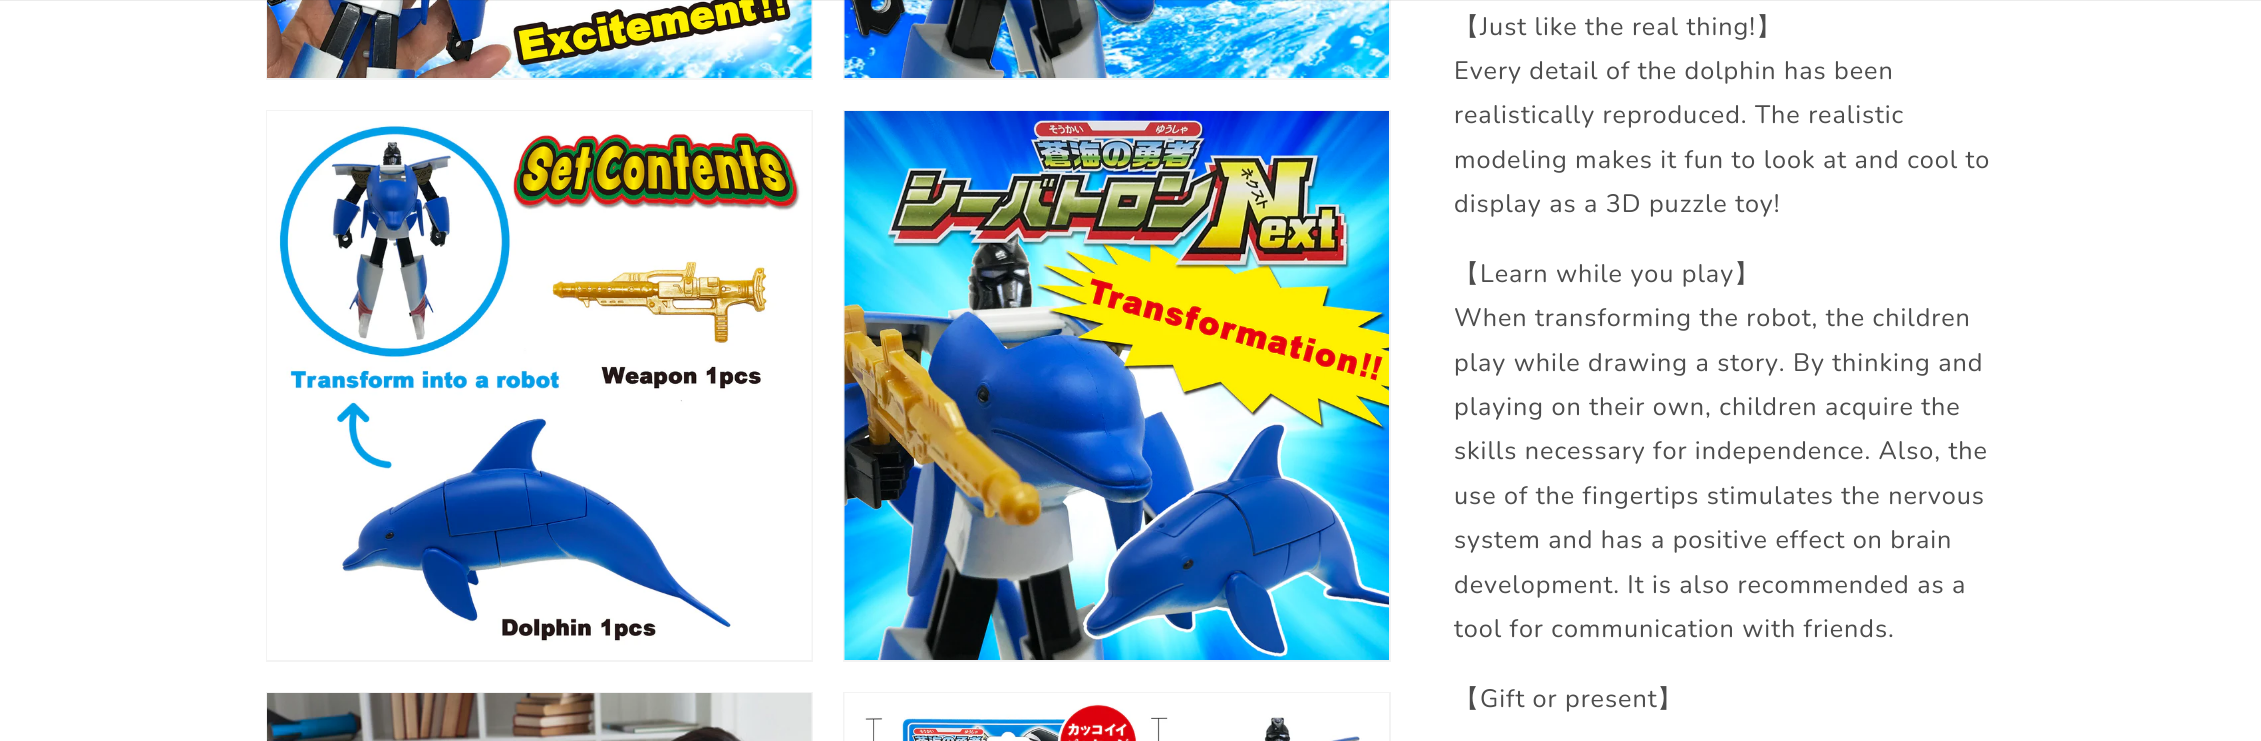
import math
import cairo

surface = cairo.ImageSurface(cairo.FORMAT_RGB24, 2261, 741)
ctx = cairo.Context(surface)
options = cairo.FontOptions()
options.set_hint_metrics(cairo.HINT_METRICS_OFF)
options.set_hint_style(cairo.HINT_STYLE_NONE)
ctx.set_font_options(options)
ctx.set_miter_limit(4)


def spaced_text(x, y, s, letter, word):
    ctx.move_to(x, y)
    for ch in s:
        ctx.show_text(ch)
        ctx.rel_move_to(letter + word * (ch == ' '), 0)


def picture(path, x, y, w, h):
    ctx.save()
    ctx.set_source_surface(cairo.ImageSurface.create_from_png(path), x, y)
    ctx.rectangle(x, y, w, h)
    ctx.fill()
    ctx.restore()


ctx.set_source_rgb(1, 1, 1)
ctx.paint()
ctx.rectangle(267, -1, 545, 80)
ctx.set_source_rgb(0.953, 0.953, 0.953)
ctx.stroke()
picture("img1.png", 267, 0, 545, 78)
ctx.rectangle(844, -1, 546, 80)
ctx.stroke()
picture("img2.png", 844, 0, 545, 78)
ctx.set_source_rgba(0.071, 0.071, 0.071, 0.08)
ctx.rectangle(0, 0, 2261, 1)
ctx.fill()
ctx.rectangle(267, 111, 545, 550)
ctx.set_source_rgb(0.953, 0.953, 0.953)
ctx.stroke()
picture("img3.png", 267, 111, 545, 549)
ctx.rectangle(844, 111, 546, 550)
ctx.stroke()
picture("img4.png", 844, 111, 545, 549)
ctx.rectangle(267, 693, 545, 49)
ctx.stroke()
picture("img5.png", 267, 693, 545, 48)
ctx.rectangle(844, 693, 546, 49)
ctx.stroke()
picture("img6.png", 844, 693, 545, 48)
ctx.select_font_face("WenQuanYi Zen Hei Medium")
ctx.set_font_size(25.2)
ctx.set_source_rgb(0.302, 0.302, 0.302)
spaced_text(1454, 35, "【", 0.95, 0)
ctx.select_font_face("Nunito")
spaced_text(1480, 35, "Just like the real thing!", 0.95, 0)
ctx.select_font_face("WenQuanYi Zen Hei Medium")
spaced_text(1756, 35, "】", 0.95, 0)
ctx.select_font_face("Nunito")
spaced_text(1454, 79, "Every detail of the dolphin has been", 0.95, 0)
spaced_text(1454, 123, "realistically reproduced. The realistic", 0.95, 0)
spaced_text(1454, 168, "modeling makes it fun to look at and cool to", 0.95, 0)
spaced_text(1454, 212, "display as a 3D puzzle toy!", 0.95, 0)
ctx.select_font_face("WenQuanYi Zen Hei Medium")
spaced_text(1454, 282, "【", 0.95, 0)
ctx.select_font_face("Nunito")
spaced_text(1480, 282, "Learn while you play", 0.95, 0)
ctx.select_font_face("WenQuanYi Zen Hei Medium")
spaced_text(1734, 282, "】", 0.95, 0)
ctx.select_font_face("Nunito")
spaced_text(1454, 326, "When transforming the robot, the children", 0.95, 0)
spaced_text(1454, 371, "play while drawing a story. By thinking and", 0.95, 0)
spaced_text(1454, 415, "playing on their own, children acquire the", 0.95, 0)
spaced_text(1454, 459, "skills necessary for independence. Also, the", 0.95, 0)
spaced_text(1454, 504, "use of the fingertips stimulates the nervous", 0.95, 0)
spaced_text(1454, 548, "system and has a positive effect on brain", 0.95, 0)
spaced_text(1454, 593, "development. It is also recommended as a", 0.95, 0)
spaced_text(1454, 637, "tool for communication with friends.", 0.95, 0)
ctx.select_font_face("WenQuanYi Zen Hei Medium")
spaced_text(1454, 707, "【", 0.95, 0)
ctx.select_font_face("Nunito")
spaced_text(1480, 707, "Gift or present", 0.95, 0)
ctx.select_font_face("WenQuanYi Zen Hei Medium")
spaced_text(1657, 707, "】", 0.95, 0)
surface.write_to_png("page.png")
